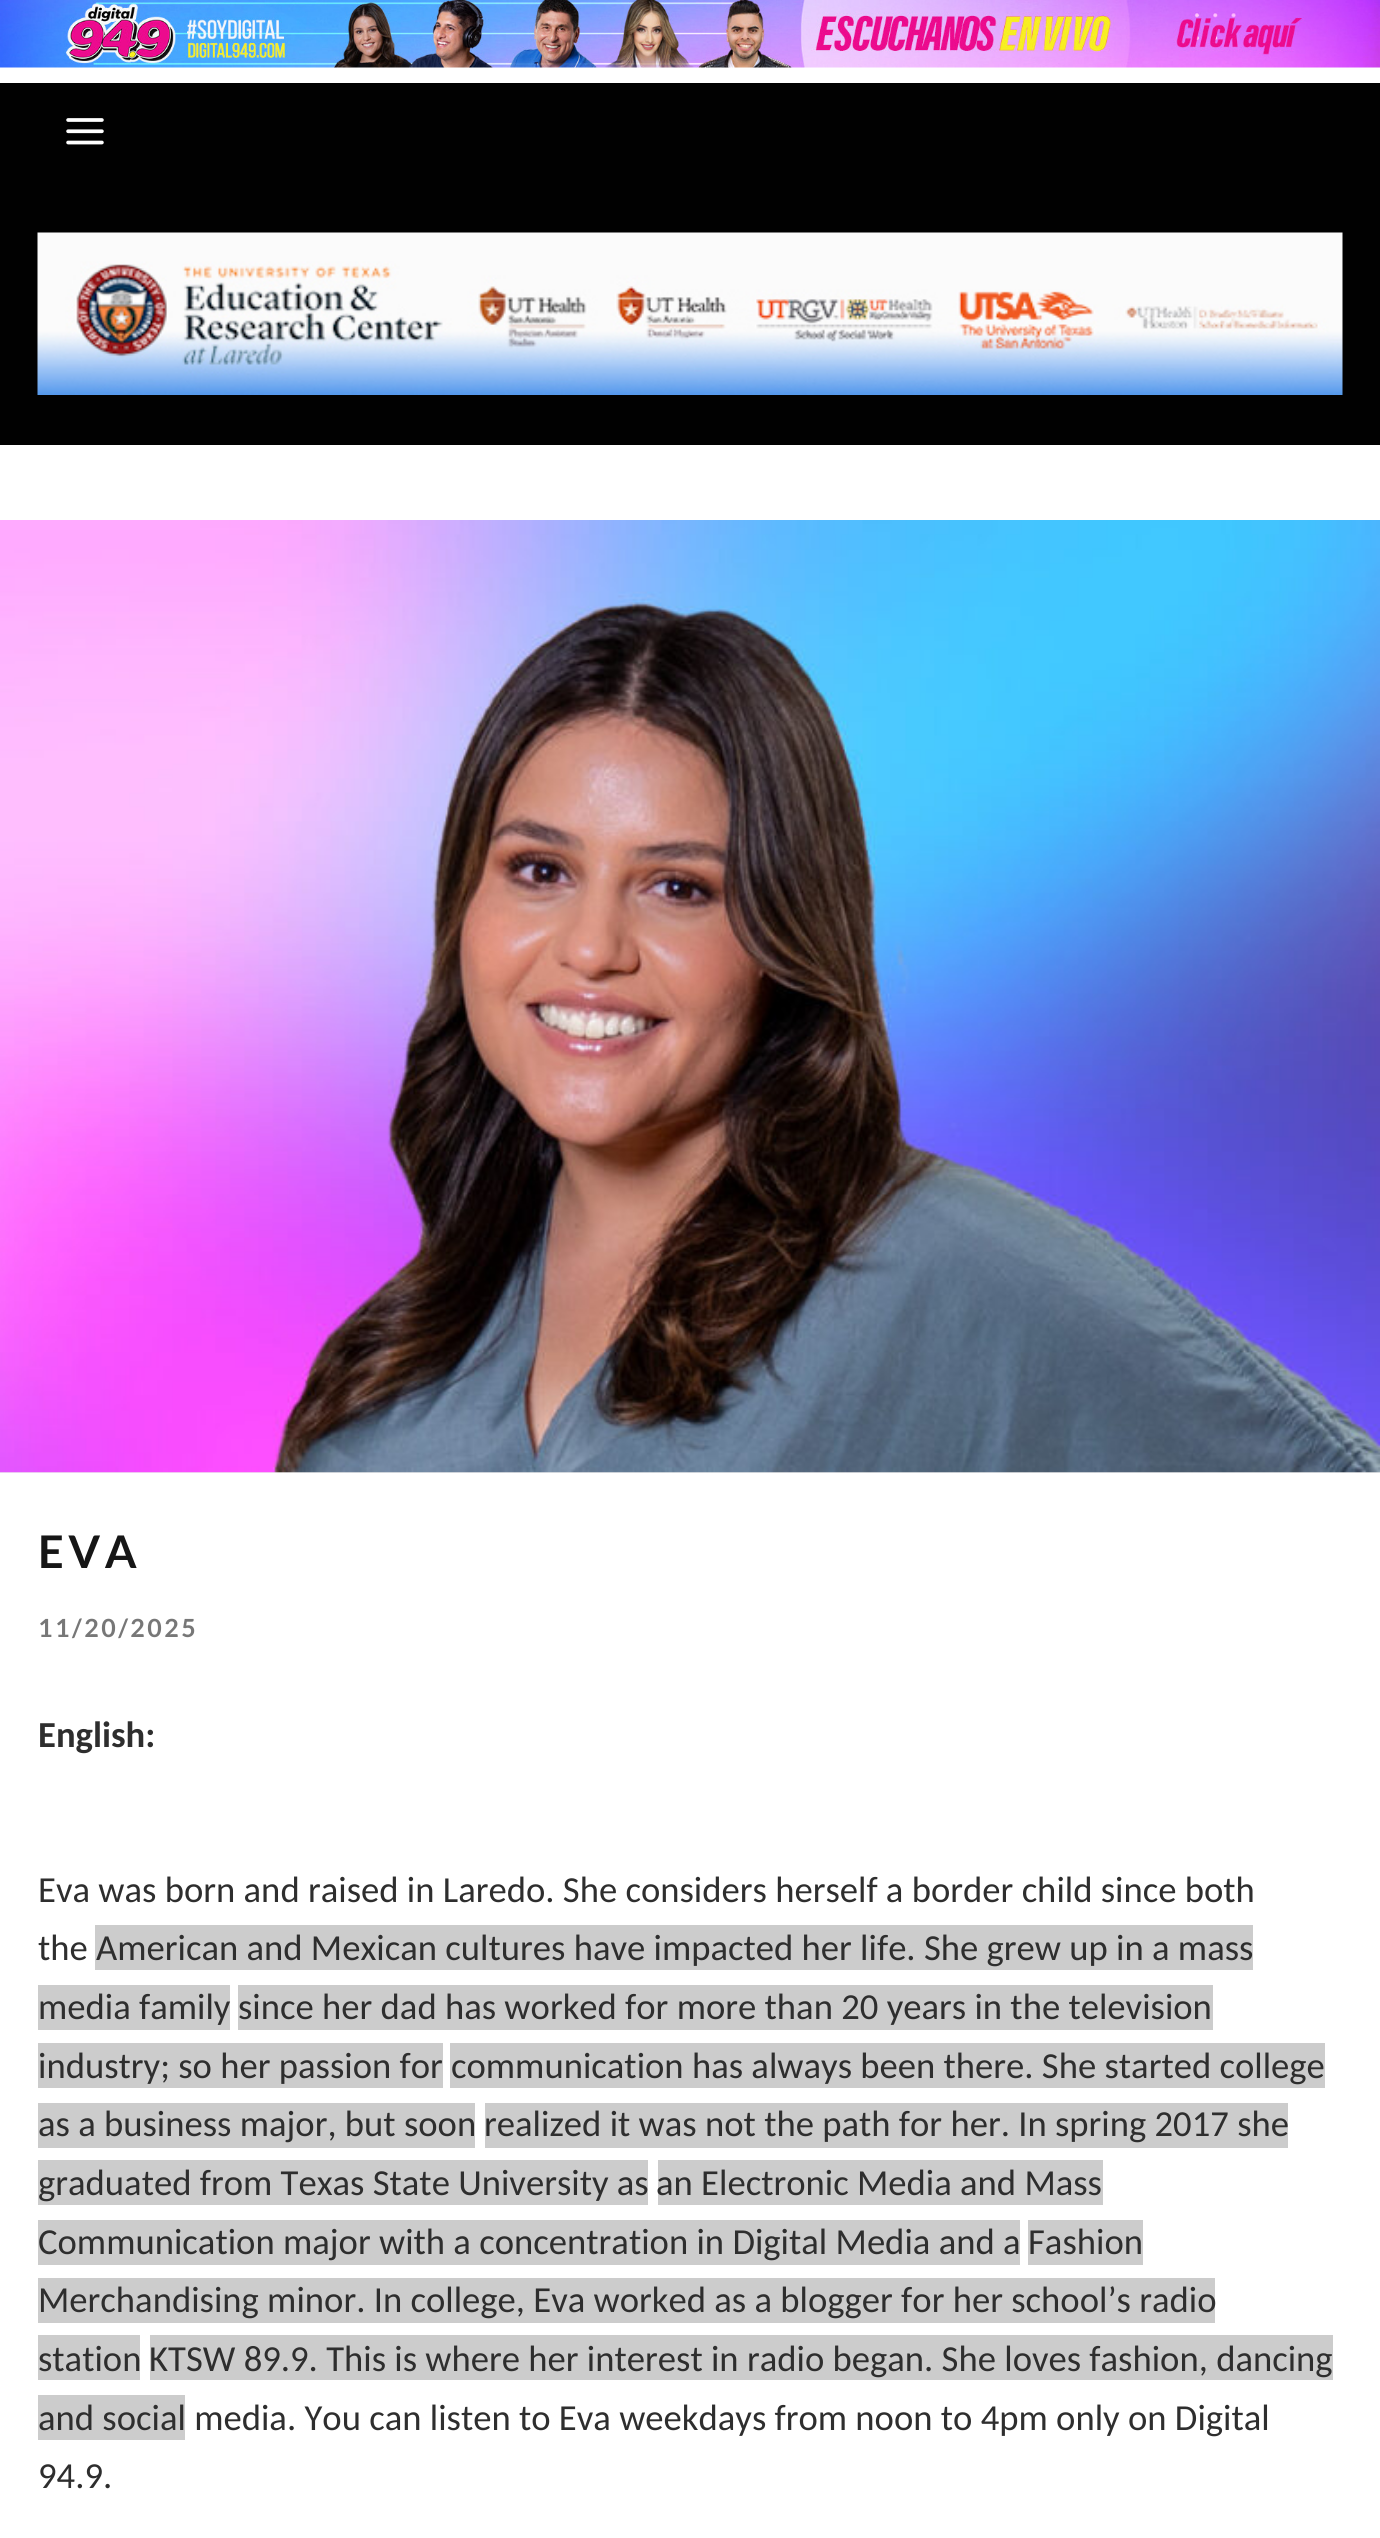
import math
import cairo

surface = cairo.ImageSurface(cairo.FORMAT_RGB24, 1380, 2538)
ctx = cairo.Context(surface)
options = cairo.FontOptions()
options.set_hint_metrics(cairo.HINT_METRICS_OFF)
options.set_hint_style(cairo.HINT_STYLE_NONE)
ctx.set_font_options(options)
ctx.set_miter_limit(4)


def spaced_text(x, y, s, letter, word):
    ctx.move_to(x, y)
    for ch in s:
        ctx.show_text(ch)
        ctx.rel_move_to(letter + word * (ch == ' '), 0)


def picture(path, x, y, w, h):
    ctx.save()
    ctx.set_source_surface(cairo.ImageSurface.create_from_png(path), x, y)
    ctx.rectangle(x, y, w, h)
    ctx.fill()
    ctx.restore()


ctx.set_source_rgb(1, 1, 1)
ctx.paint()
picture("img1.png", 0, 0, 1380, 68)
ctx.set_source_rgb(0.004, 0.004, 0.004)
ctx.rectangle(0, 83, 1380, 362)
ctx.fill()
picture("img2.png", 66, 118, 38, 27)
picture("img3.png", 37, 232, 1306, 163)
ctx.set_source_rgb(0.933, 0.933, 0.933)
ctx.rectangle(0, 1472, 1380, 1)
ctx.fill()
picture("img4.png", 0, 520, 1380, 953)
ctx.select_font_face("Lato", cairo.FONT_SLANT_NORMAL, cairo.FONT_WEIGHT_BOLD)
ctx.set_font_size(45)
ctx.set_source_rgb(0.086, 0.086, 0.086)
spaced_text(38, 1568, "EVA", 4.5, 0)
ctx.set_font_size(25)
ctx.set_source_rgb(0.467, 0.467, 0.467)
spaced_text(38, 1637, "11/20/2025", 2.5, 0)
ctx.select_font_face("Carlito", cairo.FONT_SLANT_NORMAL, cairo.FONT_WEIGHT_BOLD)
ctx.set_font_size(36.65)
ctx.set_source_rgb(0.18, 0.18, 0.18)
ctx.move_to(38, 1747)
ctx.show_text("English:")
ctx.select_font_face("Carlito")
ctx.move_to(38, 1902)
ctx.show_text("Eva was born and raised in Laredo. She considers herself a border child since both")
ctx.move_to(38, 1960)
ctx.show_text("the")
ctx.set_source_rgb(0.8, 0.8, 0.8)
ctx.rectangle(95, 1925, 1158, 45)
ctx.fill()
ctx.set_source_rgb(0.18, 0.18, 0.18)
ctx.move_to(96, 1960)
ctx.show_text("American and Mexican cultures have impacted her life. She grew up in a mass")
ctx.set_source_rgb(0.8, 0.8, 0.8)
ctx.rectangle(38, 1985, 192, 45)
ctx.fill()
ctx.set_source_rgb(0.18, 0.18, 0.18)
ctx.move_to(38, 2019)
ctx.show_text("media family")
ctx.set_source_rgb(0.8, 0.8, 0.8)
ctx.rectangle(238, 1985, 975, 45)
ctx.fill()
ctx.set_source_rgb(0.18, 0.18, 0.18)
ctx.move_to(238, 2019)
ctx.show_text("since her dad has worked for more than 20 years in the television")
ctx.set_source_rgb(0.8, 0.8, 0.8)
ctx.rectangle(38, 2043, 405, 45)
ctx.fill()
ctx.set_source_rgb(0.18, 0.18, 0.18)
ctx.move_to(38, 2078)
ctx.show_text("industry; so her passion for")
ctx.set_source_rgb(0.8, 0.8, 0.8)
ctx.rectangle(450, 2043, 875, 45)
ctx.fill()
ctx.set_source_rgb(0.18, 0.18, 0.18)
ctx.move_to(451, 2078)
ctx.show_text("communication has always been there. She started college")
ctx.set_source_rgb(0.8, 0.8, 0.8)
ctx.rectangle(38, 2103, 437, 45)
ctx.fill()
ctx.set_source_rgb(0.18, 0.18, 0.18)
ctx.move_to(38, 2136)
ctx.show_text("as a business major, but soon")
ctx.set_source_rgb(0.8, 0.8, 0.8)
ctx.rectangle(485, 2103, 803, 45)
ctx.fill()
ctx.set_source_rgb(0.18, 0.18, 0.18)
ctx.move_to(484, 2136)
ctx.show_text("realized it was not the path for her. In spring 2017 she")
ctx.set_source_rgb(0.8, 0.8, 0.8)
ctx.rectangle(38, 2160, 610, 45)
ctx.fill()
ctx.set_source_rgb(0.18, 0.18, 0.18)
ctx.move_to(38, 2195)
ctx.show_text("graduated from Texas State University as")
ctx.set_source_rgb(0.8, 0.8, 0.8)
ctx.rectangle(658, 2160, 445, 45)
ctx.fill()
ctx.set_source_rgb(0.18, 0.18, 0.18)
ctx.move_to(656, 2195)
ctx.show_text("an Electronic Media and Mass")
ctx.set_source_rgb(0.8, 0.8, 0.8)
ctx.rectangle(38, 2220, 982, 45)
ctx.fill()
ctx.set_source_rgb(0.18, 0.18, 0.18)
ctx.move_to(38, 2254)
ctx.show_text("Communication major with a concentration in Digital Media and a")
ctx.set_source_rgb(0.8, 0.8, 0.8)
ctx.rectangle(1028, 2220, 115, 45)
ctx.fill()
ctx.set_source_rgb(0.18, 0.18, 0.18)
ctx.move_to(1028, 2254)
ctx.show_text("Fashion")
ctx.set_source_rgb(0.8, 0.8, 0.8)
ctx.rectangle(38, 2278, 1177, 45)
ctx.fill()
ctx.set_source_rgb(0.18, 0.18, 0.18)
ctx.move_to(38, 2312)
ctx.show_text("Merchandising minor. In college, Eva worked as a blogger for her school’s radio")
ctx.set_source_rgb(0.8, 0.8, 0.8)
ctx.rectangle(38, 2335, 102, 45)
ctx.fill()
ctx.set_source_rgb(0.18, 0.18, 0.18)
ctx.move_to(38, 2371)
ctx.show_text("station")
ctx.set_source_rgb(0.8, 0.8, 0.8)
ctx.rectangle(150, 2335, 1183, 45)
ctx.fill()
ctx.set_source_rgb(0.18, 0.18, 0.18)
ctx.move_to(149, 2371)
ctx.show_text("KTSW 89.9. This is where her interest in radio began. She loves fashion, dancing")
ctx.set_source_rgb(0.8, 0.8, 0.8)
ctx.rectangle(38, 2395, 147, 45)
ctx.fill()
ctx.set_source_rgb(0.18, 0.18, 0.18)
ctx.move_to(38, 2430)
ctx.show_text("and social media. You can listen to Eva weekdays from noon to 4pm only on Digital")
ctx.move_to(38, 2488)
ctx.show_text("94.9.")
surface.write_to_png("page.png")
